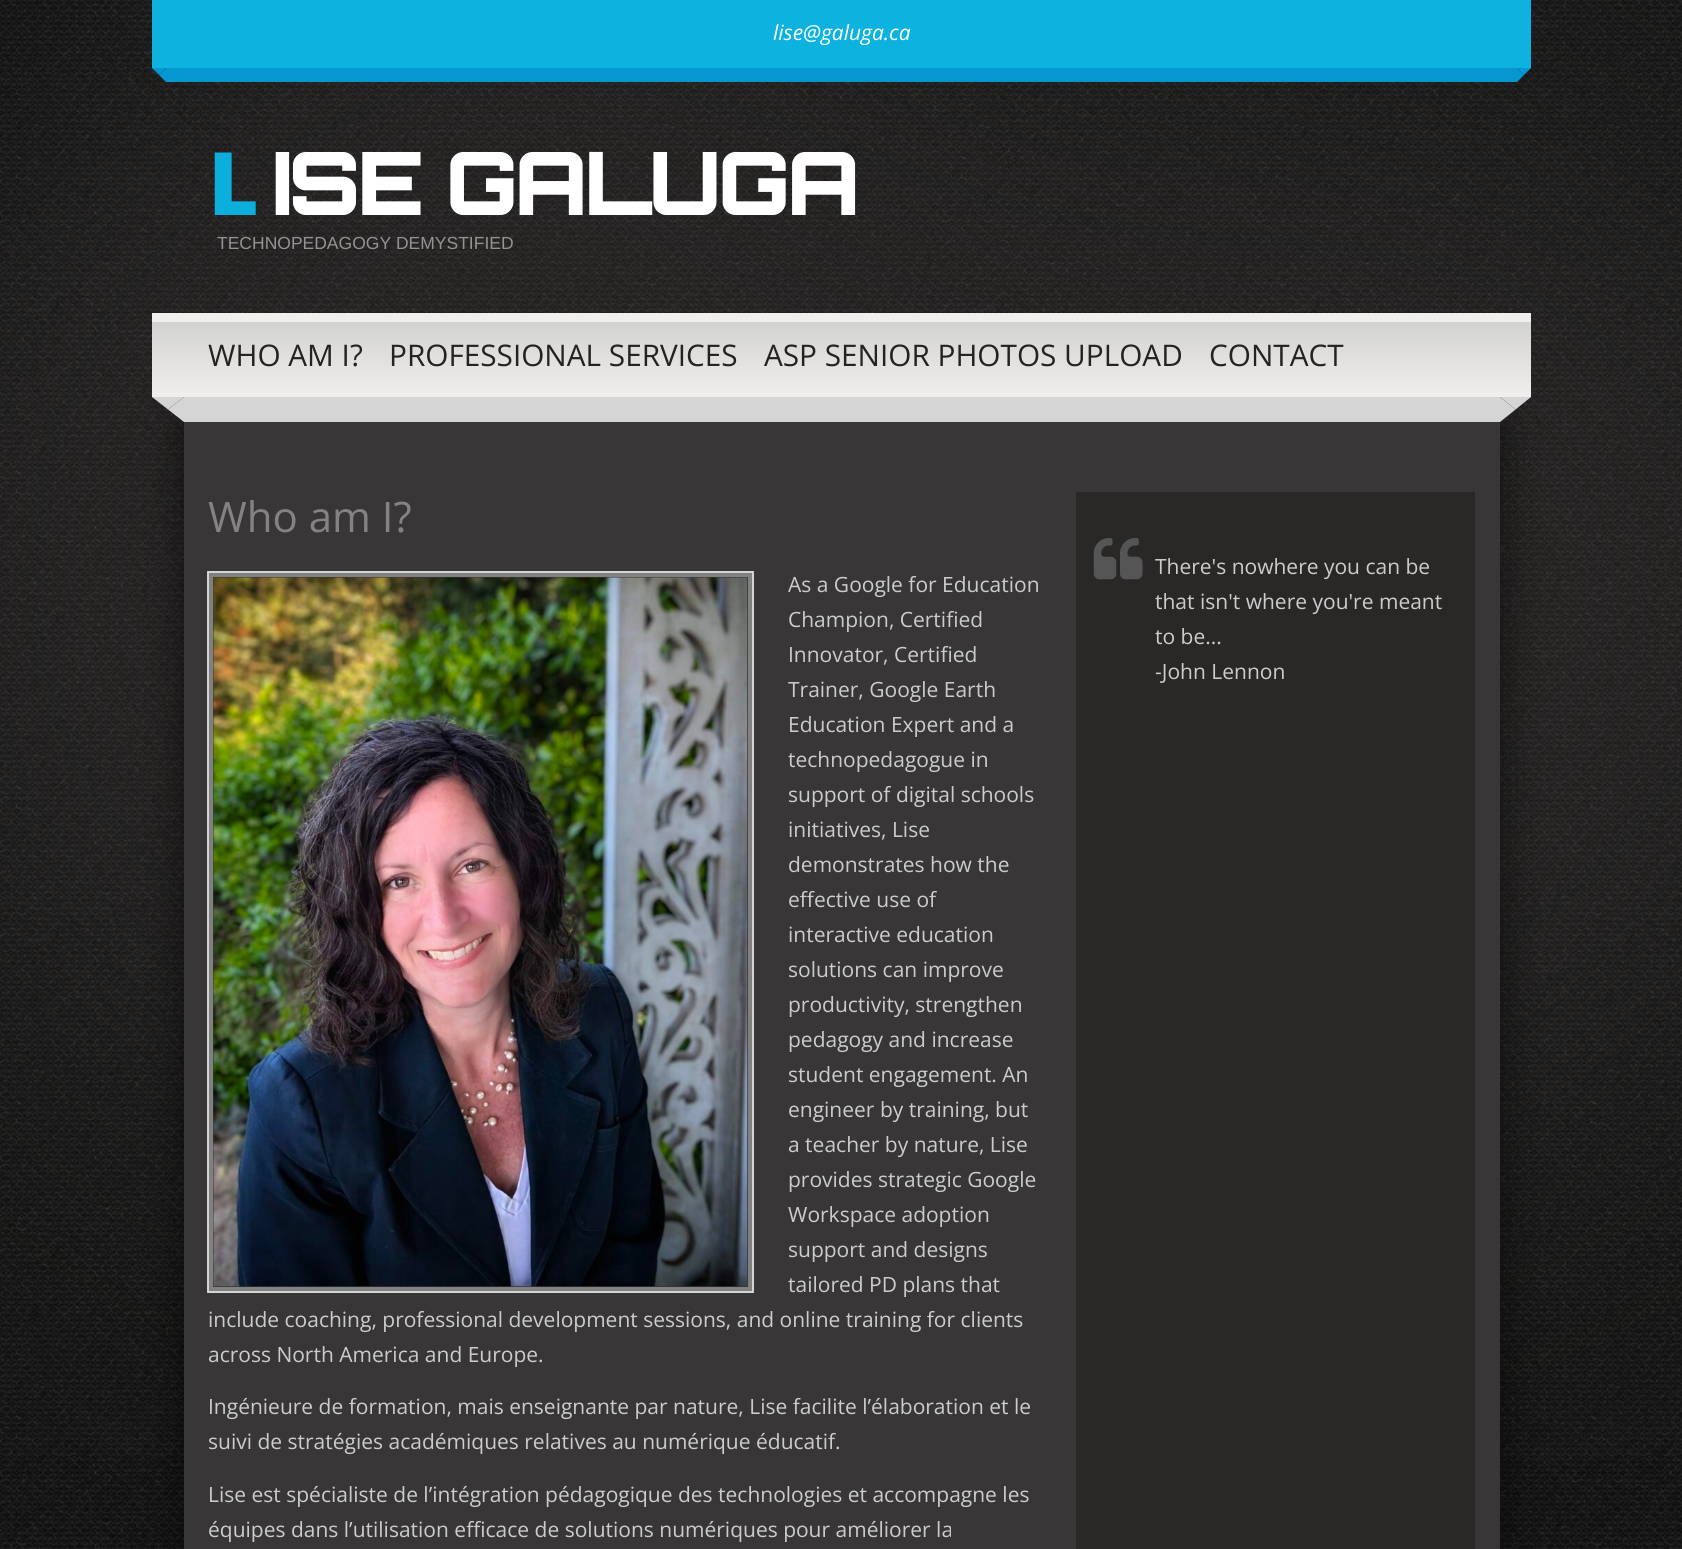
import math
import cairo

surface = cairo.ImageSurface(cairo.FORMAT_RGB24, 1682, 1549)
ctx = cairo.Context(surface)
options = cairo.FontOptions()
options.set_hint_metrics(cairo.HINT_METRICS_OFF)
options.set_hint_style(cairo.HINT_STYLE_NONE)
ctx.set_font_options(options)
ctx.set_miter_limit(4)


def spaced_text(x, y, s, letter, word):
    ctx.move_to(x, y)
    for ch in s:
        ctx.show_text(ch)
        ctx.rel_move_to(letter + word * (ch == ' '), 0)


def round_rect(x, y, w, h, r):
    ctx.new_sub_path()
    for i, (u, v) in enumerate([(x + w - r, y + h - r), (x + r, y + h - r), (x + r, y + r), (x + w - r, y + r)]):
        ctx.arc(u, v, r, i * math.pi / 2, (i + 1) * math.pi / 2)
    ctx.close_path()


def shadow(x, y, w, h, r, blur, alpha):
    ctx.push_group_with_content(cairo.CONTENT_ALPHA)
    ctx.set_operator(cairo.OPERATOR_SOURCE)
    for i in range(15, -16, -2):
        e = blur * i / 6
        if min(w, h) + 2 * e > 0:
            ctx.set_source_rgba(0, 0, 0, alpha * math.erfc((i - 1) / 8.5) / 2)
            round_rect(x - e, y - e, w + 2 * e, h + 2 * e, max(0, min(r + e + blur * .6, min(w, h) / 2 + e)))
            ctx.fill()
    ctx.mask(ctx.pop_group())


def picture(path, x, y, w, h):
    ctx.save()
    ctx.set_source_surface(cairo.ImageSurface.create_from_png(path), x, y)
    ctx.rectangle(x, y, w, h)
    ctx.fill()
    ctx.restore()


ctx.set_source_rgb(1, 1, 1)
ctx.paint()
picture("img1.png", 0, 0, 1682, 1549)
picture("img2.png", 0, 0, 1682, 1458)
ctx.set_source_rgb(0.051, 0.698, 0.871)
ctx.rectangle(152, 0, 1379, 68)
ctx.fill()
ctx.select_font_face("Open Sans", cairo.FONT_SLANT_ITALIC)
ctx.set_font_size(21)
ctx.set_source_rgb(1, 1, 1)
ctx.move_to(773, 40)
ctx.show_text("lise@galuga.ca")
ctx.set_source_rgb(0.016, 0.592, 0.816)
ctx.rectangle(166, 68, 1351, 14)
ctx.fill()
ctx.new_path()
ctx.move_to(152, 68)
ctx.line_to(166, 68)
ctx.line_to(159, 75)
ctx.close_path()
ctx.fill()
ctx.new_path()
ctx.move_to(166, 68)
ctx.line_to(166, 82)
ctx.line_to(159, 75)
ctx.close_path()
ctx.fill()
ctx.new_path()
ctx.move_to(1517, 68)
ctx.line_to(1531, 68)
ctx.line_to(1524, 75)
ctx.close_path()
ctx.fill()
ctx.new_path()
ctx.move_to(1517, 82)
ctx.line_to(1517, 68)
ctx.line_to(1524, 75)
ctx.close_path()
ctx.fill()
ctx.select_font_face("Noto Sans Black")
ctx.set_font_size(87.5)
ctx.set_source_rgb(0.047, 0.686, 0.863)
spaced_text(208, 215, "L", -3.5, 0)
ctx.select_font_face("Orbitron Black")
ctx.set_source_rgb(1, 1, 1)
spaced_text(273, 215, "ISE GALUGA", -3.5, 0)
ctx.select_font_face("Liberation Sans")
ctx.set_font_size(17.5)
ctx.set_source_rgb(0.58, 0.573, 0.573)
ctx.move_to(217, 249)
ctx.show_text("TECHNOPEDAGOGY DEMYSTIFIED")
ctx.set_source_rgb(0, 0, 0)
shadow(184, 422, 1316, 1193, 0, 22, 0.6)
gradient = cairo.LinearGradient(842, 322, 842, 397)
gradient.add_color_stop_rgba(0, 0.824, 0.824, 0.82, 1)
gradient.add_color_stop_rgba(1, 0.945, 0.937, 0.933, 1)
ctx.set_source(gradient)
ctx.rectangle(152, 322, 1379, 75)
ctx.fill()
ctx.set_source_rgb(0.945, 0.937, 0.933)
ctx.rectangle(152, 313, 1379, 9)
ctx.fill()
ctx.select_font_face("Open Sans")
ctx.set_font_size(29.75)
ctx.set_source_rgb(0.145, 0.137, 0.133)
ctx.move_to(208, 366)
ctx.show_text("WHO AM I?")
ctx.move_to(389, 366)
ctx.show_text("PROFESSIONAL SERVICES")
ctx.move_to(764, 366)
ctx.show_text("ASP SENIOR PHOTOS UPLOAD")
ctx.move_to(1209, 366)
ctx.show_text("CONTACT")
ctx.set_source_rgb(0.839, 0.835, 0.835)
ctx.rectangle(184, 397, 1316, 25)
ctx.fill()
ctx.new_path()
ctx.move_to(152, 397)
ctx.line_to(184, 397)
ctx.line_to(168, 409.5)
ctx.close_path()
ctx.fill()
ctx.new_path()
ctx.move_to(184, 397)
ctx.line_to(184, 422)
ctx.line_to(168, 409.5)
ctx.close_path()
ctx.fill()
ctx.new_path()
ctx.move_to(1500, 397)
ctx.line_to(1531, 397)
ctx.line_to(1515.5, 409.5)
ctx.close_path()
ctx.fill()
ctx.new_path()
ctx.move_to(1500, 422)
ctx.line_to(1500, 397)
ctx.line_to(1515.5, 409.5)
ctx.close_path()
ctx.fill()
ctx.set_source_rgb(0.22, 0.212, 0.212)
ctx.rectangle(184, 422, 1316, 1127)
ctx.fill()
ctx.set_font_size(42)
ctx.set_source_rgb(0.522, 0.514, 0.51)
ctx.move_to(208, 532)
ctx.show_text("Who am I?")
ctx.rectangle(210.5, 574.5, 540, 715)
ctx.set_source_rgb(0.502, 0.502, 0.502)
ctx.set_line_width(5)
ctx.stroke()
picture("img3.png", 213, 577, 535, 710)
ctx.rectangle(208, 572, 545, 720)
ctx.set_source_rgb(0.831, 0.831, 0.831)
ctx.set_line_width(2)
ctx.stroke()
ctx.set_font_size(21)
ctx.set_source_rgb(0.8, 0.8, 0.8)
ctx.move_to(788, 592)
ctx.show_text("As a Google for Education")
ctx.move_to(788, 627)
ctx.show_text("Champion, Certified")
ctx.move_to(788, 662)
ctx.show_text("Innovator, Certified")
ctx.move_to(788, 697)
ctx.show_text("Trainer, Google Earth")
ctx.move_to(788, 732)
ctx.show_text("Education Expert and a")
ctx.move_to(788, 767)
ctx.show_text("technopedagogue in")
ctx.move_to(788, 802)
ctx.show_text("support of digital schools")
ctx.move_to(788, 837)
ctx.show_text("initiatives, Lise")
ctx.move_to(788, 872)
ctx.show_text("demonstrates how the")
ctx.move_to(788, 907)
ctx.show_text("effective use of")
ctx.move_to(788, 942)
ctx.show_text("interactive education")
ctx.move_to(788, 977)
ctx.show_text("solutions can improve")
ctx.move_to(788, 1012)
ctx.show_text("productivity, strengthen")
ctx.move_to(788, 1047)
ctx.show_text("pedagogy and increase")
ctx.move_to(788, 1082)
ctx.show_text("student engagement. An")
ctx.move_to(788, 1117)
ctx.show_text("engineer by training, but")
ctx.move_to(788, 1152)
ctx.show_text("a teacher by nature, Lise")
ctx.move_to(788, 1187)
ctx.show_text("provides strategic Google")
ctx.move_to(788, 1222)
ctx.show_text("Workspace adoption")
ctx.move_to(788, 1257)
ctx.show_text("support and designs")
ctx.move_to(788, 1292)
ctx.show_text("tailored PD plans that")
ctx.move_to(208, 1327)
ctx.show_text("include coaching, professional development sessions, and online training for clients")
ctx.move_to(208, 1362)
ctx.show_text("across North America and Europe.")
ctx.move_to(208, 1414)
ctx.show_text("Ingénieure de formation, mais enseignante par nature, Lise facilite l’élaboration et le")
ctx.move_to(208, 1449)
ctx.show_text("suivi de stratégies académiques relatives au numérique éducatif.")
ctx.move_to(208, 1502)
ctx.show_text("Lise est spécialiste de l’intégration pédagogique des technologies et accompagne les")
ctx.move_to(208, 1537)
ctx.show_text("équipes dans l’utilisation efficace de solutions numériques pour améliorer la")
ctx.set_source_rgb(0.165, 0.157, 0.153)
ctx.rectangle(1076, 492, 399, 1057)
ctx.fill()
picture("img4.png", 1093, 538, 50, 42)
ctx.set_source_rgb(0.8, 0.8, 0.8)
ctx.move_to(1155, 574)
ctx.show_text("There's nowhere you can be")
ctx.move_to(1155, 609)
ctx.show_text("that isn't where you're meant")
ctx.move_to(1155, 644)
ctx.show_text("to be...")
ctx.move_to(1155, 679)
ctx.show_text("-John Lennon")
surface.write_to_png("page.png")
